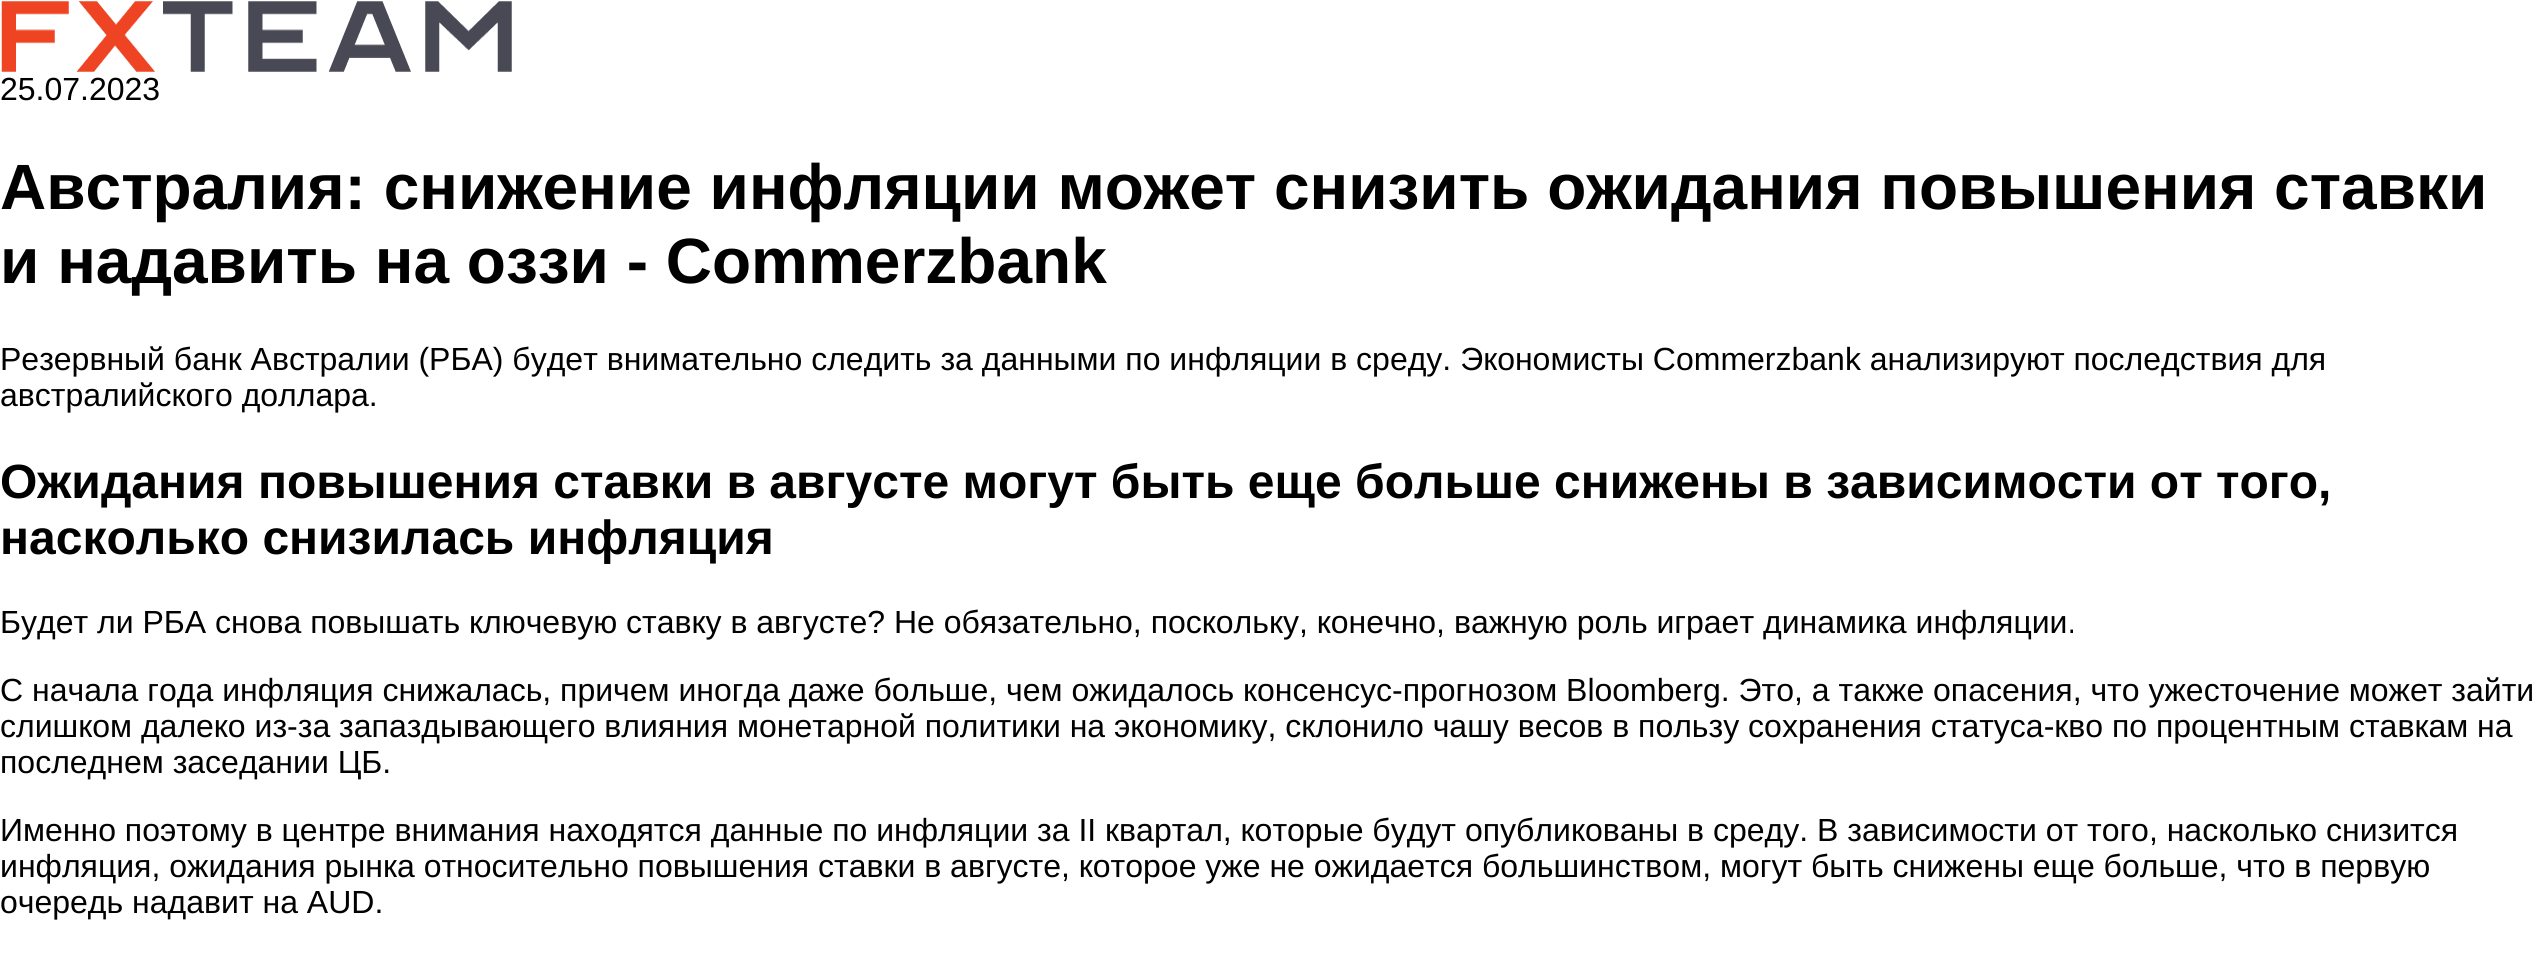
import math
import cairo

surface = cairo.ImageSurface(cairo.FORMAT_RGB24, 2540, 955)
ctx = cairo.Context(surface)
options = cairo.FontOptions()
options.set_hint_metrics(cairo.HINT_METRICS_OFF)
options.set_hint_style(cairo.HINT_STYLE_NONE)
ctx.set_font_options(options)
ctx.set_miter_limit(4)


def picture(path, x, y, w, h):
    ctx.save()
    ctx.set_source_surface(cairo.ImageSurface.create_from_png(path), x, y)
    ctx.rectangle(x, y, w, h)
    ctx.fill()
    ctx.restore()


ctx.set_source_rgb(1, 1, 1)
ctx.paint()
picture("img1.png", 1, 1, 511, 71)
ctx.select_font_face("Liberation Sans")
ctx.set_font_size(32)
ctx.set_source_rgb(0, 0, 0)
ctx.move_to(0, 100)
ctx.show_text("25.07.2023")
ctx.select_font_face("Liberation Sans", cairo.FONT_SLANT_NORMAL, cairo.FONT_WEIGHT_BOLD)
ctx.set_font_size(64)
ctx.move_to(0, 209)
ctx.show_text("Австралия: снижение инфляции может снизить ожидания повышения ставки")
ctx.move_to(0, 283)
ctx.show_text("и надавить на оззи - Commerzbank")
ctx.select_font_face("Liberation Sans")
ctx.set_font_size(32)
ctx.move_to(0, 370)
ctx.show_text("Резервный банк Австралии (РБА) будет внимательно следить за данными по инфляции в среду. Экономисты Commerzbank анализируют последствия для")
ctx.move_to(0, 406)
ctx.show_text("австралийского доллара.")
ctx.select_font_face("Liberation Sans", cairo.FONT_SLANT_NORMAL, cairo.FONT_WEIGHT_BOLD)
ctx.set_font_size(48)
ctx.move_to(0, 498)
ctx.show_text("Ожидания повышения ставки в августе могут быть еще больше снижены в зависимости от того,")
ctx.move_to(0, 554)
ctx.show_text("насколько снизилась инфляция")
ctx.select_font_face("Liberation Sans")
ctx.set_font_size(32)
ctx.move_to(0, 633)
ctx.show_text("Будет ли РБА снова повышать ключевую ставку в августе? Не обязательно, поскольку, конечно, важную роль играет динамика инфляции.")
ctx.move_to(0, 701)
ctx.show_text("С начала года инфляция снижалась, причем иногда даже больше, чем ожидалось консенсус-прогнозом Bloomberg. Это, а также опасения, что ужесточение может зайти")
ctx.move_to(0, 737)
ctx.show_text("слишком далеко из-за запаздывающего влияния монетарной политики на экономику, склонило чашу весов в пользу сохранения статуса-кво по процентным ставкам на")
ctx.move_to(0, 773)
ctx.show_text("последнем заседании ЦБ.")
ctx.move_to(0, 841)
ctx.show_text("Именно поэтому в центре внимания находятся данные по инфляции за II квартал, которые будут опубликованы в среду. В зависимости от того, насколько снизится")
ctx.move_to(0, 877)
ctx.show_text("инфляция, ожидания рынка относительно повышения ставки в августе, которое уже не ожидается большинством, могут быть снижены еще больше, что в первую")
ctx.move_to(0, 913)
ctx.show_text("очередь надавит на AUD.")
surface.write_to_png("page.png")
